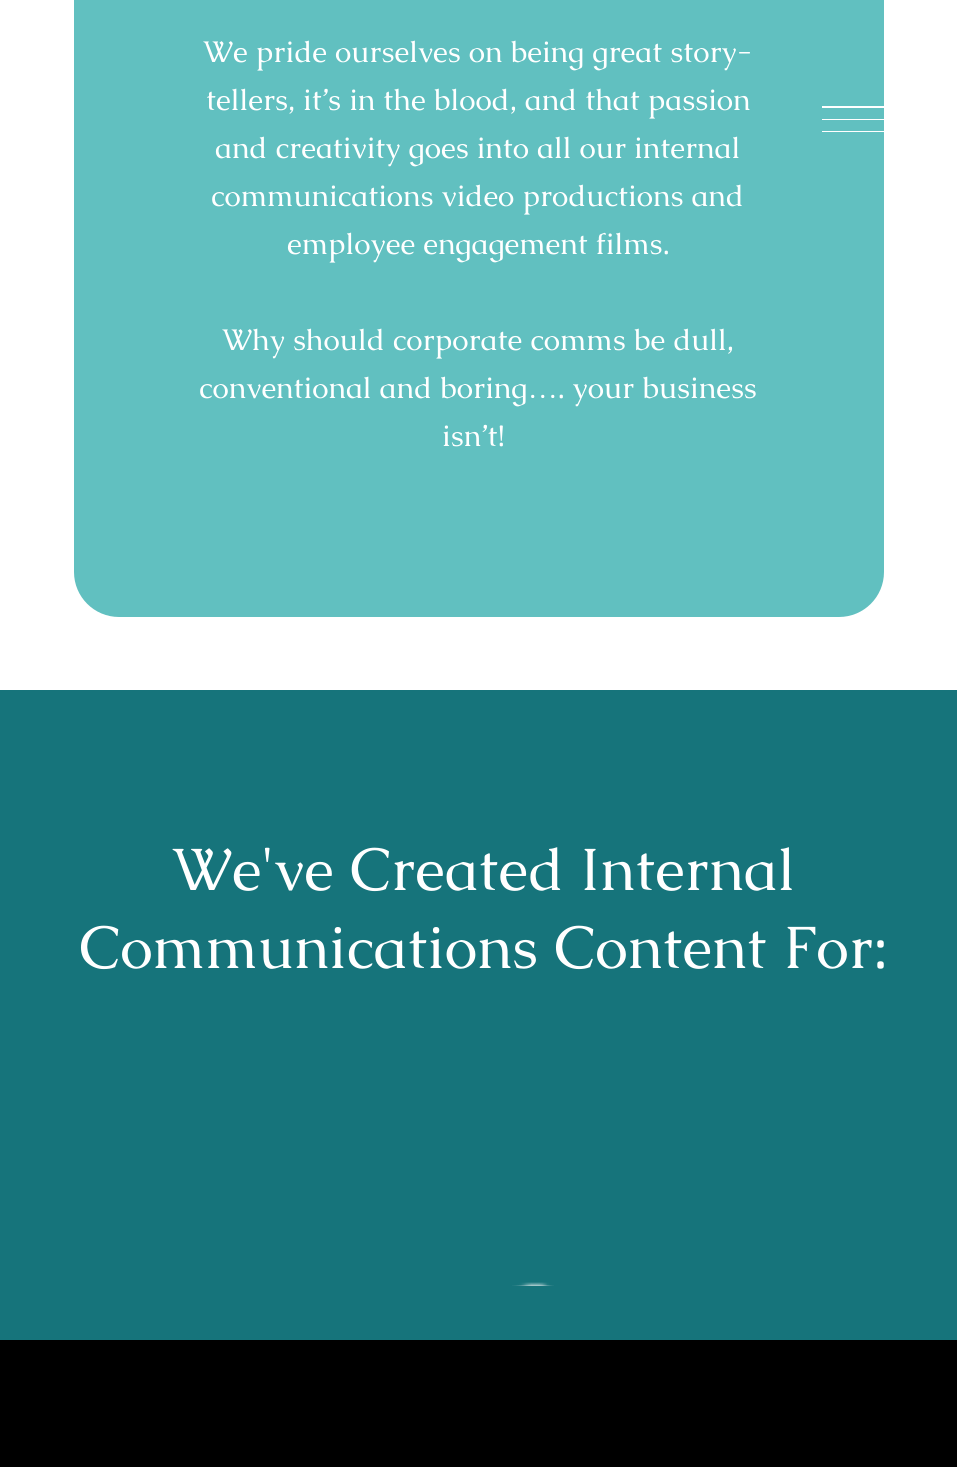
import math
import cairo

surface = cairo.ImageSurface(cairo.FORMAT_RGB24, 957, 1467)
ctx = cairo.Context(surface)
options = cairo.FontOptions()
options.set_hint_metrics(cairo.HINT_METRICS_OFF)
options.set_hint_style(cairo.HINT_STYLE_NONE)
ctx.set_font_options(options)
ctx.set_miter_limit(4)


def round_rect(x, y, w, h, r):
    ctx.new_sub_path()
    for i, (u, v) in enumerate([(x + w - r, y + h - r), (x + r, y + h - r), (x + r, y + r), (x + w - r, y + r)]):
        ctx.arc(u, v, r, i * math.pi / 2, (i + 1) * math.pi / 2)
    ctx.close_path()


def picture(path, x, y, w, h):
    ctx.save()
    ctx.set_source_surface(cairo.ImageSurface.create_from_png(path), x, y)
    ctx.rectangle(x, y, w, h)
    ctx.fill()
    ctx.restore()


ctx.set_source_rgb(1, 1, 1)
ctx.paint()
ctx.set_source_rgb(0.38, 0.753, 0.753)
round_rect(74, -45, 810, 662, 45)
ctx.fill()
ctx.select_font_face("Caudex")
ctx.set_font_size(30)
ctx.set_source_rgb(1, 1, 1)
ctx.move_to(203, 62)
ctx.show_text("We pride ourselves on being great story-")
ctx.move_to(206, 110)
ctx.show_text("tellers, it’s in the blood, and that passion")
ctx.move_to(215, 158)
ctx.show_text("and creativity goes into all our internal")
ctx.move_to(211, 206)
ctx.show_text("communications video productions and")
ctx.move_to(287, 254)
ctx.show_text("employee engagement films.")
ctx.move_to(222, 350)
ctx.show_text("Why should corporate comms be dull,")
ctx.move_to(199, 398)
ctx.show_text("conventional and boring…. your business")
ctx.move_to(442, 446)
ctx.show_text("isn’t!")
ctx.set_source_rgb(0.086, 0.455, 0.482)
ctx.rectangle(0, 690, 957, 650)
ctx.fill()
ctx.set_font_size(60)
ctx.set_source_rgb(1, 1, 1)
ctx.move_to(172, 890)
ctx.show_text("We've Created Internal")
ctx.move_to(79, 968)
ctx.show_text("Communications Content For:")
picture("img1.png", 512, 1282, 42, 4)
ctx.set_source_rgb(0, 0, 0)
ctx.rectangle(0, 1340, 957, 127)
ctx.fill()
ctx.set_source_rgb(1, 1, 1)
ctx.rectangle(822, 106, 62, 2)
ctx.fill()
ctx.rectangle(822, 119, 62, 1)
ctx.fill()
ctx.rectangle(822, 131, 62, 1)
ctx.fill()
surface.write_to_png("page.png")
